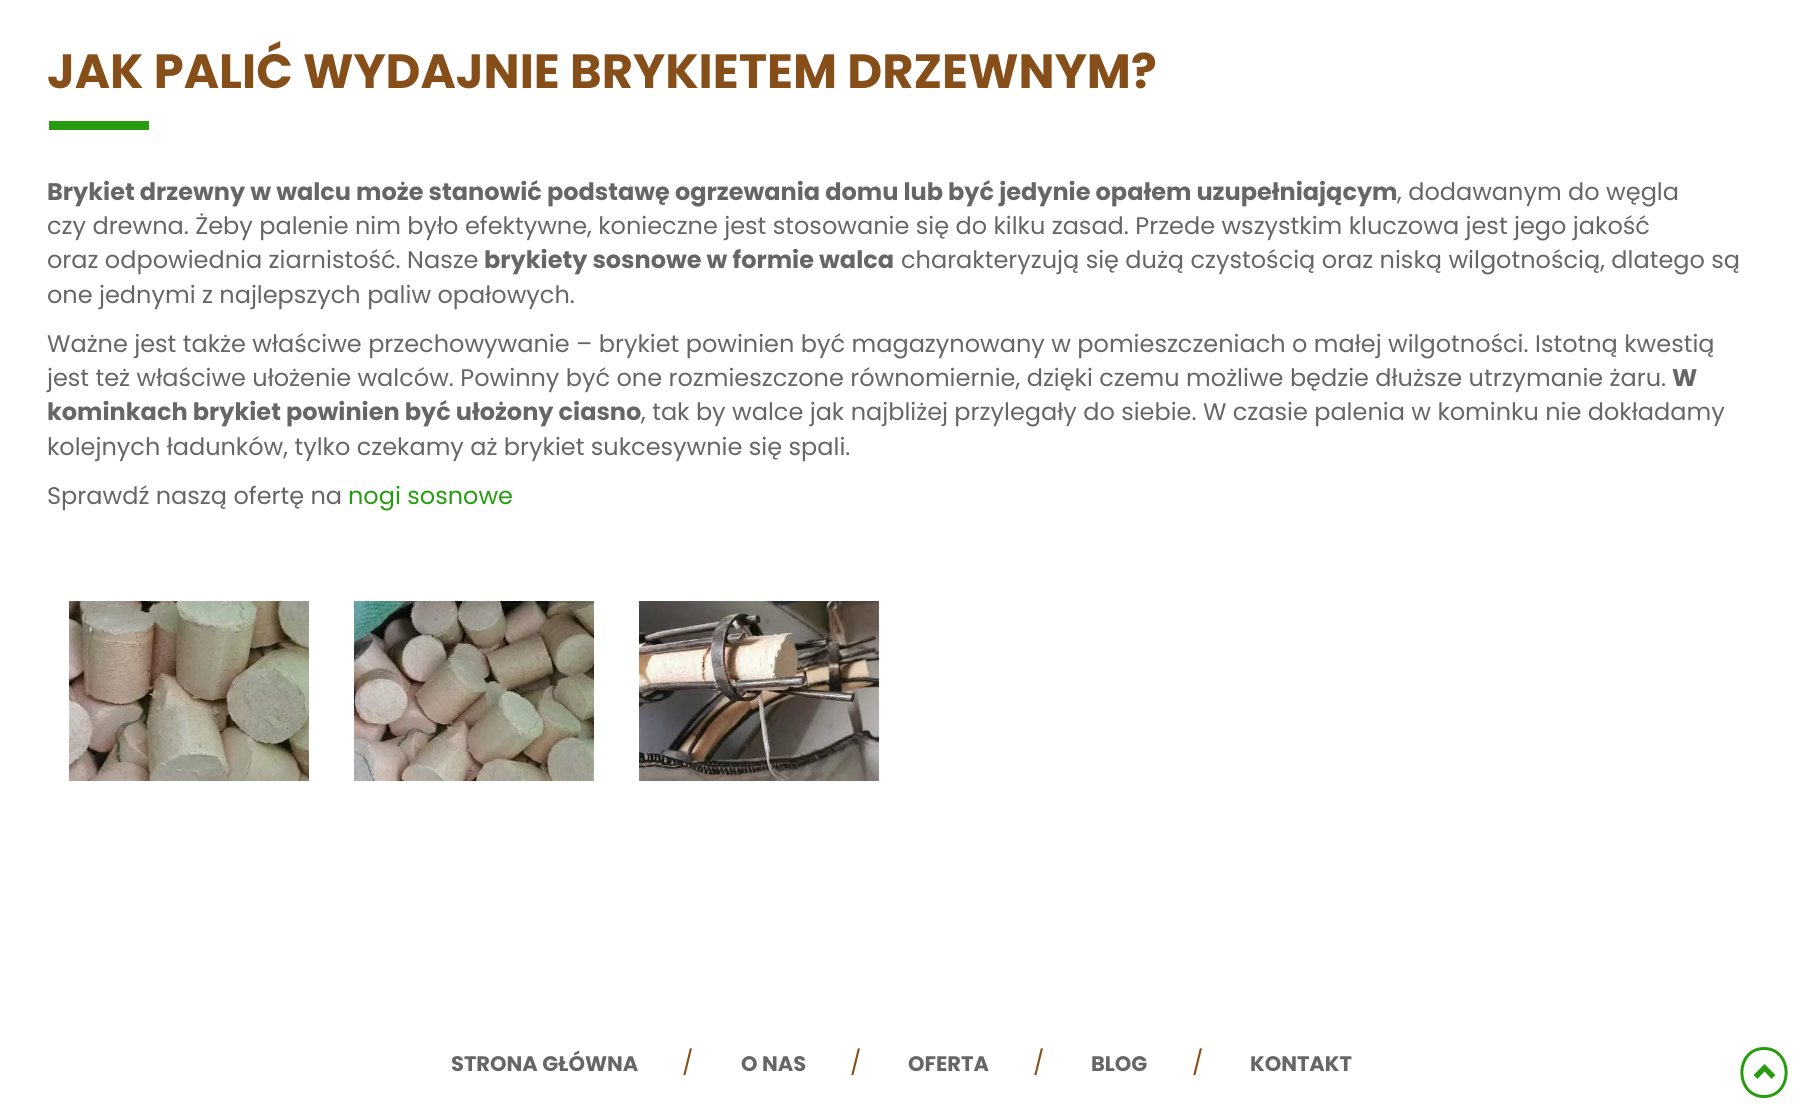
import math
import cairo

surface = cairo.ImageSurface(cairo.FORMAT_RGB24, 1803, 1110)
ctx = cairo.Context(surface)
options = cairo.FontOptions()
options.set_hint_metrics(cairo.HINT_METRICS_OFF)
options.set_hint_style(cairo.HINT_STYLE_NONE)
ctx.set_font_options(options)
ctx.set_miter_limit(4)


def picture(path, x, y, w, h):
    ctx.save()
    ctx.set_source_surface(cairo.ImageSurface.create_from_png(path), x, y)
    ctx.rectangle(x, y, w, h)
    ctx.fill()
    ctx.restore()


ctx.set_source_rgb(1, 1, 1)
ctx.paint()
ctx.select_font_face("Poppins", cairo.FONT_SLANT_NORMAL, cairo.FONT_WEIGHT_BOLD)
ctx.set_font_size(48)
ctx.set_source_rgb(0.525, 0.31, 0.102)
ctx.move_to(47, 88)
ctx.show_text("JAK PALIĆ WYDAJNIE BRYKIETEM DRZEWNYM?")
ctx.set_source_rgb(0.153, 0.612, 0.067)
ctx.rectangle(49, 121, 100, 9)
ctx.fill()
ctx.set_font_size(24)
ctx.set_source_rgb(0.4, 0.4, 0.4)
ctx.move_to(47, 200)
ctx.show_text("Brykiet drzewny w walcu może stanowić podstawę ogrzewania domu lub być jedynie opałem uzupełniającym")
ctx.select_font_face("Poppins")
ctx.move_to(1397, 200)
ctx.show_text(", dodawanym do węgla")
ctx.move_to(47, 234)
ctx.show_text("czy drewna. Żeby palenie nim było efektywne, konieczne jest stosowanie się do kilku zasad. Przede wszystkim kluczowa jest jego jakość")
ctx.move_to(47, 268)
ctx.show_text("oraz odpowiednia ziarnistość. Nasze")
ctx.select_font_face("Poppins", cairo.FONT_SLANT_NORMAL, cairo.FONT_WEIGHT_BOLD)
ctx.move_to(484, 268)
ctx.show_text("brykiety sosnowe w formie walca")
ctx.select_font_face("Poppins")
ctx.move_to(901, 268)
ctx.show_text("charakteryzują się dużą czystością oraz niską wilgotnością, dlatego są")
ctx.move_to(47, 303)
ctx.show_text("one jednymi z najlepszych paliw opałowych.")
ctx.move_to(47, 352)
ctx.show_text("Ważne jest także właściwe przechowywanie – brykiet powinien być magazynowany w pomieszczeniach o małej wilgotności. Istotną kwestią")
ctx.move_to(47, 386)
ctx.show_text("jest też właściwe ułożenie walców. Powinny być one rozmieszczone równomiernie, dzięki czemu możliwe będzie dłuższe utrzymanie żaru.")
ctx.select_font_face("Poppins", cairo.FONT_SLANT_NORMAL, cairo.FONT_WEIGHT_BOLD)
ctx.move_to(1672, 386)
ctx.show_text("W")
ctx.move_to(47, 420)
ctx.show_text("kominkach brykiet powinien być ułożony ciasno")
ctx.select_font_face("Poppins")
ctx.move_to(641, 420)
ctx.show_text(", tak by walce jak najbliżej przylegały do siebie. W czasie palenia w kominku nie dokładamy")
ctx.move_to(47, 455)
ctx.show_text("kolejnych ładunków, tylko czekamy aż brykiet sukcesywnie się spali.")
ctx.move_to(47, 504)
ctx.show_text("Sprawdź naszą ofertę na")
ctx.set_source_rgb(0.153, 0.612, 0.067)
ctx.move_to(348, 504)
ctx.show_text("nogi sosnowe")
picture("img1.png", 69, 601, 240, 180)
picture("img2.png", 354, 601, 240, 180)
picture("img3.png", 639, 601, 240, 180)
ctx.select_font_face("Poppins", cairo.FONT_SLANT_NORMAL, cairo.FONT_WEIGHT_BOLD)
ctx.set_font_size(21)
ctx.set_source_rgb(0.4, 0.4, 0.4)
ctx.move_to(451, 1071)
ctx.show_text("STRONA GŁÓWNA")
ctx.select_font_face("Poppins")
ctx.set_font_size(24)
ctx.set_source_rgb(0.525, 0.31, 0.102)
ctx.move_to(682, 1071)
ctx.show_text("/")
ctx.select_font_face("Poppins", cairo.FONT_SLANT_NORMAL, cairo.FONT_WEIGHT_BOLD)
ctx.set_font_size(21)
ctx.set_source_rgb(0.4, 0.4, 0.4)
ctx.move_to(741, 1071)
ctx.show_text("O NAS")
ctx.select_font_face("Poppins")
ctx.set_font_size(24)
ctx.set_source_rgb(0.525, 0.31, 0.102)
ctx.move_to(850, 1071)
ctx.show_text("/")
ctx.select_font_face("Poppins", cairo.FONT_SLANT_NORMAL, cairo.FONT_WEIGHT_BOLD)
ctx.set_font_size(21)
ctx.set_source_rgb(0.4, 0.4, 0.4)
ctx.move_to(908, 1071)
ctx.show_text("OFERTA")
ctx.select_font_face("Poppins")
ctx.set_font_size(24)
ctx.set_source_rgb(0.525, 0.31, 0.102)
ctx.move_to(1033, 1071)
ctx.show_text("/")
ctx.select_font_face("Poppins", cairo.FONT_SLANT_NORMAL, cairo.FONT_WEIGHT_BOLD)
ctx.set_font_size(21)
ctx.set_source_rgb(0.4, 0.4, 0.4)
ctx.move_to(1091, 1071)
ctx.show_text("BLOG")
ctx.select_font_face("Poppins")
ctx.set_font_size(24)
ctx.set_source_rgb(0.525, 0.31, 0.102)
ctx.move_to(1192, 1071)
ctx.show_text("/")
ctx.select_font_face("Poppins", cairo.FONT_SLANT_NORMAL, cairo.FONT_WEIGHT_BOLD)
ctx.set_font_size(21)
ctx.set_source_rgb(0.4, 0.4, 0.4)
ctx.move_to(1250, 1071)
ctx.show_text("KONTAKT")
ctx.new_path()
ctx.move_to(1764, 1048.5)
ctx.curve_to(1793.5, 1048.5, 1793.5, 1096.5, 1764, 1096.5)
ctx.curve_to(1734.5, 1096.5, 1734.5, 1048.5, 1764, 1048.5)
ctx.close_path()
ctx.set_source_rgb(0.153, 0.612, 0.067)
ctx.set_line_width(3)
ctx.stroke()
ctx.new_path()
ctx.move_to(1775.5, 1075)
ctx.line_to(1771.5, 1079)
ctx.line_to(1764.5, 1071.5)
ctx.line_to(1757.5, 1079)
ctx.line_to(1753.5, 1075)
ctx.line_to(1764.5, 1064)
ctx.close_path()
ctx.fill()
surface.write_to_png("page.png")
